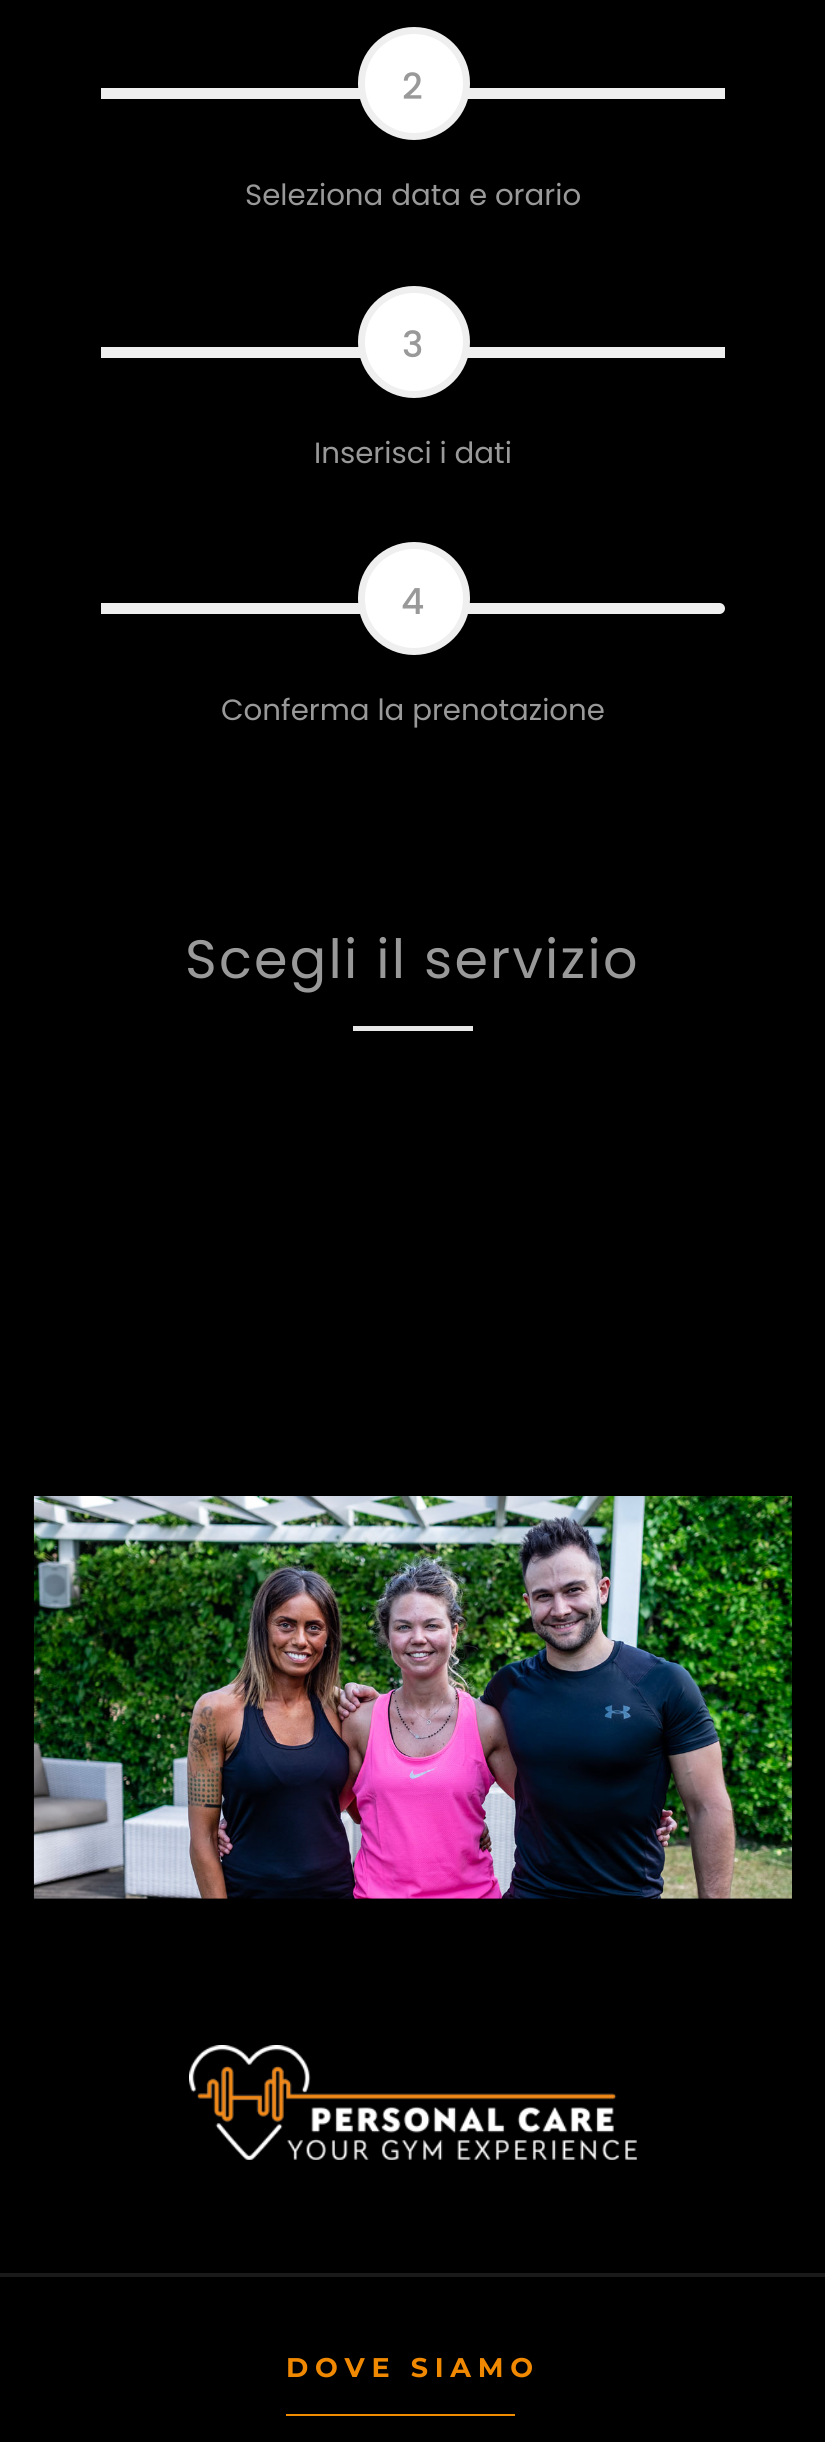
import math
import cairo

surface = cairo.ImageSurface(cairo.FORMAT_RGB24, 825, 2442)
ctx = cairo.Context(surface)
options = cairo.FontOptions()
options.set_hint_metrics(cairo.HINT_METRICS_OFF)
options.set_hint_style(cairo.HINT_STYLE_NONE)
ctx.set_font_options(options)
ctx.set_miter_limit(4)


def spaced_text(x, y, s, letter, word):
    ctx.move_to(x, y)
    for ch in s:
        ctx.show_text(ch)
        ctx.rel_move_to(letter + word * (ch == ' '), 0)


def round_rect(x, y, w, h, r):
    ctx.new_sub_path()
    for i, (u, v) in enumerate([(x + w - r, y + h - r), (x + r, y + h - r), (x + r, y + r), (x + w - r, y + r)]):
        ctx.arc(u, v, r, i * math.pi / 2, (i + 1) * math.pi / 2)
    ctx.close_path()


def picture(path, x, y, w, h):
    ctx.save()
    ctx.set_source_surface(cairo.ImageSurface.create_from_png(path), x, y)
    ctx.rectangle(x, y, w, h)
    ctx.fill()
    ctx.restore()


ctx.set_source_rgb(0, 0, 0)
ctx.paint()
ctx.set_source_rgb(0.937, 0.937, 0.937)
ctx.rectangle(101, 88, 260, 11)
ctx.fill()
ctx.rectangle(467, 88, 258, 11)
ctx.fill()
ctx.set_source_rgb(1, 1, 1)
round_rect(361.5, 30.5, 105, 106, 52.5)
ctx.fill_preserve()
ctx.set_source_rgb(0.937, 0.937, 0.937)
ctx.set_line_width(7)
ctx.stroke()
ctx.select_font_face("Poppins Medium")
ctx.set_font_size(36)
ctx.set_source_rgb(0.6, 0.6, 0.6)
ctx.move_to(402, 99)
ctx.show_text("2")
ctx.select_font_face("Poppins")
ctx.set_font_size(29.25)
ctx.move_to(245, 205)
ctx.show_text("Seleziona data e orario")
ctx.set_source_rgb(0.937, 0.937, 0.937)
ctx.rectangle(101, 347, 260, 11)
ctx.fill()
ctx.rectangle(467, 347, 258, 11)
ctx.fill()
ctx.set_source_rgb(1, 1, 1)
ctx.arc(414, 342, 52.5, 0, 2 * math.pi)
ctx.fill_preserve()
ctx.set_source_rgb(0.937, 0.937, 0.937)
ctx.stroke()
ctx.select_font_face("Poppins Medium")
ctx.set_font_size(36)
ctx.set_source_rgb(0.6, 0.6, 0.6)
ctx.move_to(402, 357)
ctx.show_text("3")
ctx.select_font_face("Poppins")
ctx.set_font_size(29.25)
ctx.move_to(314, 463)
ctx.show_text("Inserisci i dati")
ctx.set_source_rgb(0.937, 0.937, 0.937)
ctx.rectangle(101, 603, 260, 11)
ctx.fill()
round_rect(414, 603, 311, 11, 5.5)
ctx.fill()
ctx.set_source_rgb(1, 1, 1)
round_rect(361.5, 545.5, 105, 106, 52.5)
ctx.fill_preserve()
ctx.set_source_rgb(0.937, 0.937, 0.937)
ctx.stroke()
ctx.select_font_face("Poppins Medium")
ctx.set_font_size(36)
ctx.set_source_rgb(0.6, 0.6, 0.6)
ctx.move_to(401, 614)
ctx.show_text("4")
ctx.select_font_face("Poppins")
ctx.set_font_size(29.25)
ctx.move_to(221, 720)
ctx.show_text("Conferma la prenotazione")
ctx.set_font_size(54)
spaced_text(185, 978, "Scegli il servizio", 2.25, 0)
ctx.set_source_rgb(0.906, 0.906, 0.906)
ctx.rectangle(353, 1026, 120, 5)
ctx.fill()
picture("img1.png", 33, 1496, 759, 403)
ctx.set_source_rgb(0.102, 0.102, 0.102)
ctx.rectangle(0, 2273, 825, 4)
ctx.fill()
picture("img2.png", 189, 2045, 448, 115)
ctx.select_font_face("Montserrat", cairo.FONT_SLANT_NORMAL, cairo.FONT_WEIGHT_BOLD)
ctx.set_font_size(27)
ctx.set_source_rgb(0.945, 0.537, 0)
spaced_text(286, 2377, "DOVE SIAMO", 6.75, 0)
ctx.set_source_rgb(0.945, 0.545, 0)
ctx.rectangle(286, 2414, 229, 2)
ctx.fill()
surface.write_to_png("page.png")
